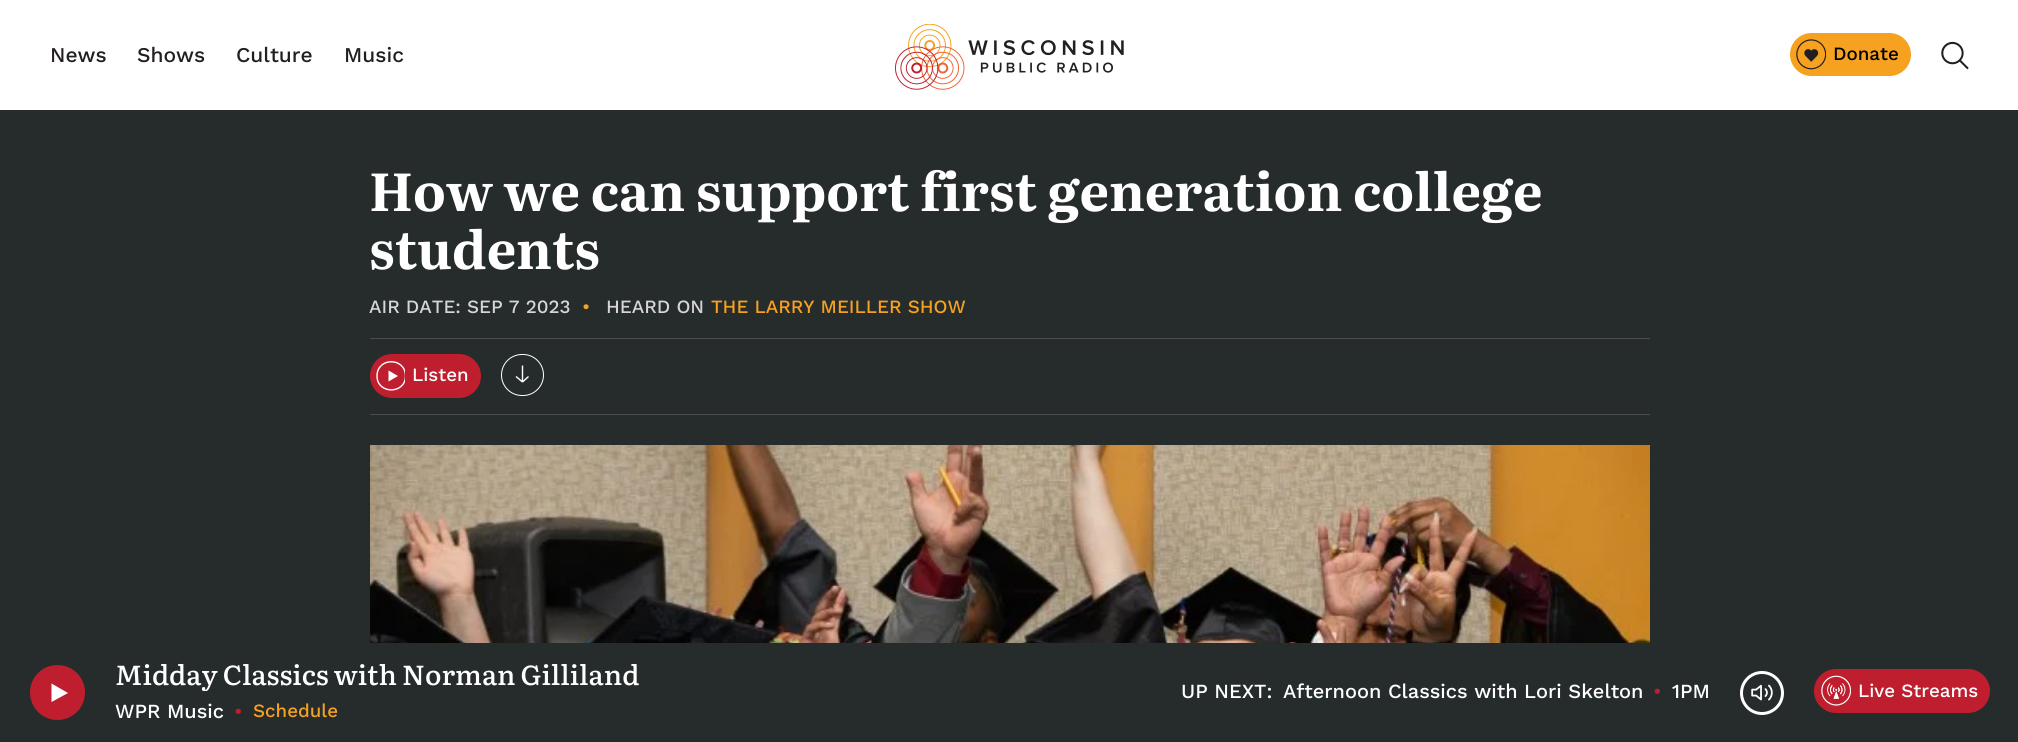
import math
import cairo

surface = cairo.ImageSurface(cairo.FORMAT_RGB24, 2018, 742)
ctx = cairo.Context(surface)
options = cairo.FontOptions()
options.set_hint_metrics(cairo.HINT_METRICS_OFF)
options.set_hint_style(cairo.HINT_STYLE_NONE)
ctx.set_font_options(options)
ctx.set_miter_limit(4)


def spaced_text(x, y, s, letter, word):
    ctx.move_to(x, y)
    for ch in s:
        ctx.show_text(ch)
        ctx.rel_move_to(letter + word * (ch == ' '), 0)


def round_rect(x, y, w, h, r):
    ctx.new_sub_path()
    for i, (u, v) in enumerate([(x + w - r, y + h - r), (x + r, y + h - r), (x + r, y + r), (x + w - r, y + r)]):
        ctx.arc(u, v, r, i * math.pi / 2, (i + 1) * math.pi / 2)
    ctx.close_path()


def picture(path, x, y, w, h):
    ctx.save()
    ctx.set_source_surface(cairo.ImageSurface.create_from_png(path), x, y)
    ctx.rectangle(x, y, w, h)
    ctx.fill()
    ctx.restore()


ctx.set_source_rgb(1, 1, 1)
ctx.paint()
ctx.select_font_face("Work Sans Medium")
ctx.set_font_size(21)
ctx.set_source_rgb(0.137, 0.122, 0.125)
ctx.move_to(50, 62)
ctx.show_text("News")
ctx.move_to(137, 62)
ctx.show_text("Shows")
ctx.move_to(236, 62)
ctx.show_text("Culture")
ctx.move_to(344, 62)
ctx.show_text("Music")
picture("img1.png", 895, 24, 229, 66)
ctx.set_source_rgb(0.965, 0.631, 0.125)
round_rect(1790, 33, 121, 43, 21.5)
ctx.fill()
picture("img2.png", 1796, 39, 30, 31)
ctx.set_font_size(18.75)
ctx.set_source_rgb(0, 0, 0)
ctx.move_to(1833, 60)
ctx.show_text("Donate")
picture("img3.png", 1941, 41, 28, 29)
ctx.set_source_rgb(0.149, 0.173, 0.173)
ctx.rectangle(0, 110, 2018, 632)
ctx.fill()
ctx.select_font_face("Literata", cairo.FONT_SLANT_NORMAL, cairo.FONT_WEIGHT_BOLD)
ctx.set_font_size(52.5)
ctx.set_source_rgb(1, 1, 1)
ctx.move_to(369, 211)
ctx.show_text("How we can support first generation college")
ctx.move_to(369, 269)
ctx.show_text("students")
ctx.select_font_face("Work Sans Medium")
ctx.set_font_size(18.75)
ctx.set_source_rgb(0.843, 0.839, 0.839)
ctx.move_to(369, 313)
ctx.show_text("AIR DATE: SEP 7 2023")
ctx.set_source_rgb(0.965, 0.631, 0.125)
ctx.move_to(582, 313)
ctx.show_text("•")
ctx.set_source_rgb(0.843, 0.839, 0.839)
ctx.move_to(606, 313)
ctx.show_text("HEARD ON")
ctx.set_source_rgb(0.965, 0.631, 0.125)
ctx.move_to(711, 313)
ctx.show_text("THE LARRY MEILLER SHOW")
ctx.set_source_rgb(0.302, 0.302, 0.302)
ctx.rectangle(370, 338, 1280, 1)
ctx.fill()
ctx.rectangle(370, 414, 1280, 1)
ctx.fill()
ctx.set_source_rgb(0.745, 0.118, 0.176)
round_rect(370, 354, 111, 44, 22)
ctx.fill()
ctx.save()
ctx.rectangle(376, 360, 29, 31)
ctx.clip()
ctx.new_path()
ctx.move_to(377, 376)
ctx.curve_to(377, 357, 405.5, 357, 405.5, 376)
ctx.curve_to(405.5, 394.5, 377, 394.5, 377, 376)
ctx.close_path()
ctx.set_source_rgb(1, 1, 1)
ctx.set_line_width(1.4)
ctx.stroke()
ctx.restore()
ctx.set_source_rgb(1, 1, 1)
ctx.new_path()
ctx.move_to(388.5, 370.5)
ctx.line_to(388.5, 381.5)
ctx.line_to(398, 376)
ctx.close_path()
ctx.fill()
ctx.move_to(412, 381)
ctx.show_text("Listen")
round_rect(501.5, 354.5, 42, 41, 20.5)
ctx.set_line_width(1)
ctx.stroke()
ctx.new_path()
ctx.move_to(522.5, 382)
ctx.line_to(516, 376.5)
ctx.move_to(522.5, 382)
ctx.line_to(522.5, 365.5)
ctx.move_to(522.5, 382)
ctx.line_to(528.5, 376.5)
ctx.set_line_width(1.4)
ctx.stroke()
picture("img4.png", 370, 445, 1280, 198)
ctx.set_source_rgb(0.745, 0.118, 0.176)
ctx.arc(57.5, 692.5, 27.5, 0, 2 * math.pi)
ctx.fill()
ctx.set_source_rgb(1, 1, 1)
ctx.new_path()
ctx.move_to(51.5, 683.5)
ctx.line_to(51.5, 702)
ctx.line_to(68, 693)
ctx.close_path()
ctx.fill()
ctx.save()
ctx.rectangle(115, 656, 625, 35)
ctx.clip()
ctx.select_font_face("Literata Medium")
ctx.set_font_size(27.5)
spaced_text(115, 685, "Midday Classics with Norman Gilliland", 0, -0.5)
ctx.restore()
ctx.set_font_size(20)
ctx.move_to(115, 718)
ctx.show_text("WPR Music")
ctx.set_source_rgb(0.745, 0.118, 0.176)
ctx.move_to(234, 718)
ctx.show_text("•")
ctx.set_font_size(18.75)
ctx.set_source_rgb(0.965, 0.631, 0.125)
ctx.move_to(253, 717)
ctx.show_text("Schedule")
ctx.set_font_size(20)
ctx.set_source_rgb(1, 1, 1)
ctx.move_to(1181, 698)
ctx.show_text("UP NEXT:")
ctx.move_to(1283, 698)
ctx.show_text("Afternoon Classics with Lori Skelton")
ctx.set_source_rgb(0.745, 0.118, 0.176)
ctx.move_to(1653, 698)
ctx.show_text("•")
ctx.set_source_rgb(1, 1, 1)
ctx.move_to(1672, 698)
ctx.show_text("1PM")
ctx.new_path()
ctx.arc(1762, 693, 20.5, 0, 2 * math.pi)
ctx.set_line_width(3)
ctx.stroke()
picture("img5.png", 1751, 684, 22, 17)
ctx.set_source_rgb(0.745, 0.118, 0.176)
round_rect(1814, 669, 176, 44, 22)
ctx.fill()
picture("img6.png", 1821, 675, 30, 31)
ctx.set_font_size(18.75)
ctx.set_source_rgb(1, 1, 1)
ctx.move_to(1858, 697)
ctx.show_text("Live Streams")
surface.write_to_png("page.png")
